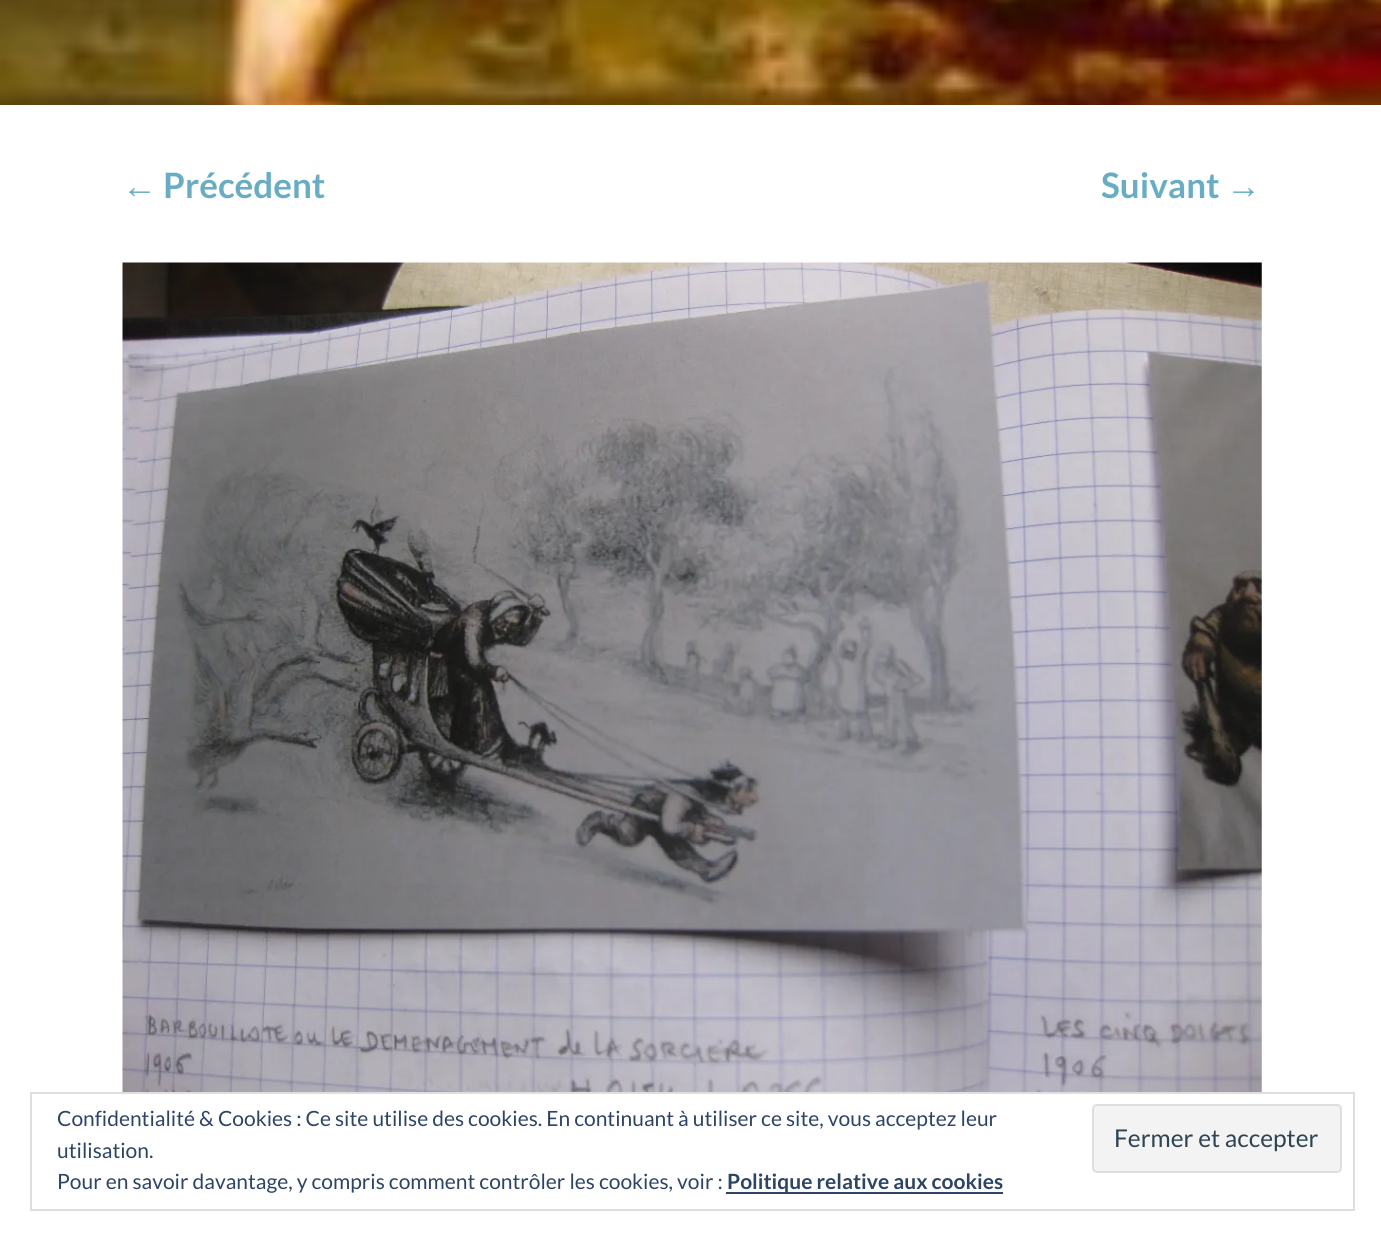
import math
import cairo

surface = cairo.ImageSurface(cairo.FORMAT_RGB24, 1381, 1238)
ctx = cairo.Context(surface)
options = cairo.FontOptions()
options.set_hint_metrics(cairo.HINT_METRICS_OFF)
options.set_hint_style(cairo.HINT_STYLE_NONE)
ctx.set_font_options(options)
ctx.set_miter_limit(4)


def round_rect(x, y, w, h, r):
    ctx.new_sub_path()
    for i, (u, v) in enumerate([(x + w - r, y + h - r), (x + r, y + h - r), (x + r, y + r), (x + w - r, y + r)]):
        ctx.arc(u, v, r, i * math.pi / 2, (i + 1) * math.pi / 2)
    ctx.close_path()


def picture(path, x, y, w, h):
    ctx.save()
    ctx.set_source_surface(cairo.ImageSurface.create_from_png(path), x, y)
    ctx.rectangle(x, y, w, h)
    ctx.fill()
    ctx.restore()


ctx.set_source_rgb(1, 1, 1)
ctx.paint()
picture("img1.png", 0, 0, 1381, 105)
ctx.select_font_face("Liberation Sans", cairo.FONT_SLANT_NORMAL, cairo.FONT_WEIGHT_BOLD)
ctx.set_font_size(35)
ctx.set_source_rgb(0.408, 0.678, 0.765)
ctx.move_to(122, 198)
ctx.show_text("←")
ctx.select_font_face("Lato", cairo.FONT_SLANT_NORMAL, cairo.FONT_WEIGHT_BOLD)
ctx.move_to(163, 198)
ctx.show_text("Précédent")
ctx.move_to(1101, 198)
ctx.show_text("Suivant")
ctx.select_font_face("Liberation Sans", cairo.FONT_SLANT_NORMAL, cairo.FONT_WEIGHT_BOLD)
ctx.move_to(1226, 198)
ctx.show_text("→")
picture("img2.png", 122, 262, 1140, 830)
ctx.rectangle(31, 1093, 1323, 117)
ctx.set_source_rgb(0.871, 0.871, 0.871)
ctx.stroke()
ctx.select_font_face("Lato")
ctx.set_font_size(21)
ctx.set_source_rgb(0.18, 0.267, 0.404)
ctx.move_to(57, 1126)
ctx.show_text("Confidentialité & Cookies : Ce site utilise des cookies. En continuant à utiliser ce site, vous acceptez leur")
ctx.move_to(57, 1158)
ctx.show_text("utilisation.")
ctx.set_source_rgb(0.953, 0.953, 0.953)
round_rect(1093, 1105, 248, 67, 4)
ctx.fill_preserve()
ctx.set_source_rgb(0.871, 0.871, 0.871)
ctx.stroke()
ctx.set_font_size(24.5)
ctx.set_source_rgb(0.18, 0.267, 0.325)
ctx.move_to(1114, 1147)
ctx.show_text("Fermer et accepter")
ctx.set_font_size(21)
ctx.set_source_rgb(0.18, 0.267, 0.404)
ctx.move_to(57, 1189)
ctx.show_text("Pour en savoir davantage, y compris comment contrôler les cookies, voir :")
ctx.rectangle(726, 1192, 277, 2)
ctx.fill()
ctx.select_font_face("Lato", cairo.FONT_SLANT_NORMAL, cairo.FONT_WEIGHT_BOLD)
ctx.move_to(727, 1189)
ctx.show_text("Politique relative aux cookies")
surface.write_to_png("page.png")
